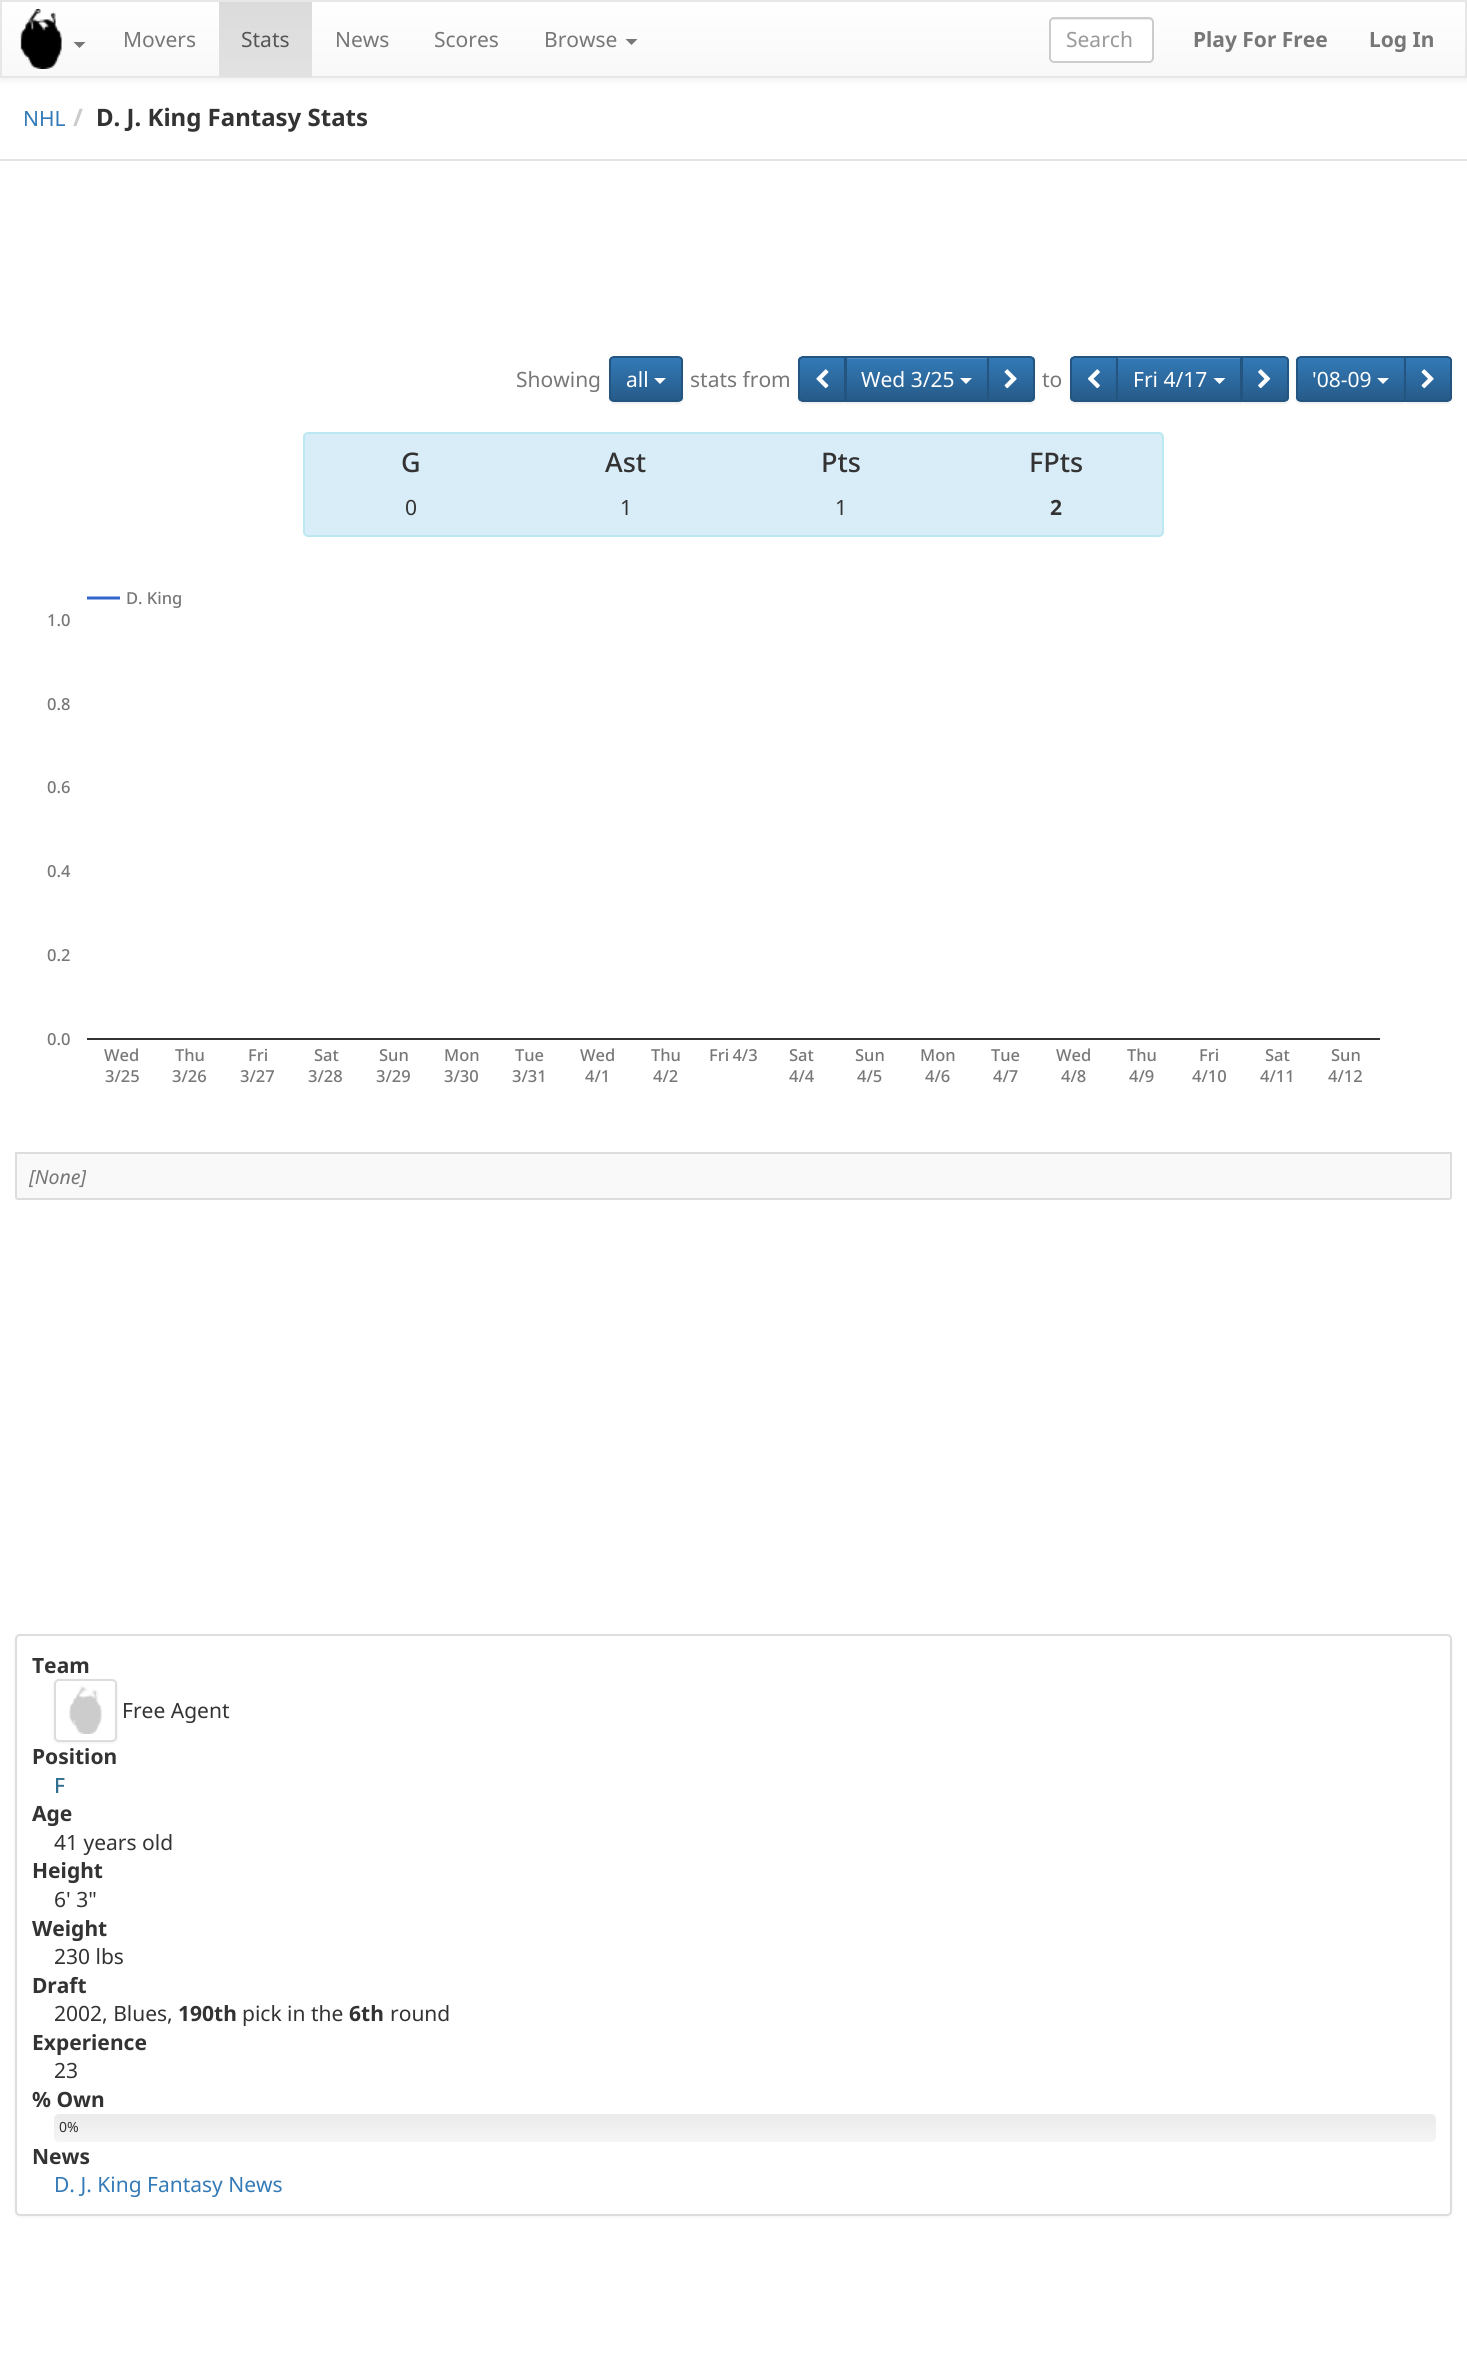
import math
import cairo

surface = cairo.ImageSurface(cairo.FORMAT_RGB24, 1467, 2375)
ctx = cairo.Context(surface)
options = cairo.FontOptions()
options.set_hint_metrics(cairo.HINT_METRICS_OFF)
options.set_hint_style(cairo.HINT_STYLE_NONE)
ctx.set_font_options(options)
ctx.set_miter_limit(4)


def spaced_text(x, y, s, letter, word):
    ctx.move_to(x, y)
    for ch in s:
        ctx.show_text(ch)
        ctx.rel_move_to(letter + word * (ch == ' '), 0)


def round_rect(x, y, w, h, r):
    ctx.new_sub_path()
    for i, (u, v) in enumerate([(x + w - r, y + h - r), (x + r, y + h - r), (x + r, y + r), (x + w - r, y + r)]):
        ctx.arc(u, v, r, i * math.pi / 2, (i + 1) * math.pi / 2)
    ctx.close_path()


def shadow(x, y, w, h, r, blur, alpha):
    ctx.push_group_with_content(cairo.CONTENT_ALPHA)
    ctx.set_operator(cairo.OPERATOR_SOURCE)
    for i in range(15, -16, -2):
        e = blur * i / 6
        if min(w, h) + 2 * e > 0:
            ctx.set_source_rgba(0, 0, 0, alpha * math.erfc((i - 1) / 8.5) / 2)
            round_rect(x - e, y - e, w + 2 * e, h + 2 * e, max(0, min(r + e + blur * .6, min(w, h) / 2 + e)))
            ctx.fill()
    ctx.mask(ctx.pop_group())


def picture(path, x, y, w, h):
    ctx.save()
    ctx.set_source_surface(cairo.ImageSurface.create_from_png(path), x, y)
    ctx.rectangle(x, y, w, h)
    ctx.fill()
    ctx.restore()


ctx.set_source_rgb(1, 1, 1)
ctx.paint()
ctx.set_source_rgb(0, 0, 0)
shadow(0, 2, 1467, 78, 0, 4, 0.07)
gradient = cairo.LinearGradient(734, 1.5, 734, 77)
gradient.add_color_stop_rgba(0, 1, 1, 1, 1)
gradient.add_color_stop_rgba(1, 0.973, 0.973, 0.973, 1)
ctx.set_source(gradient)
ctx.rectangle(2, 2, 1463, 74)
ctx.fill()
ctx.rectangle(1, 1, 1465, 76)
ctx.set_source_rgb(0.906, 0.906, 0.906)
ctx.stroke()
picture("img1.png", 20, 9, 42, 60)
ctx.set_source_rgb(0.467, 0.467, 0.467)
ctx.new_path()
ctx.move_to(73.5, 42)
ctx.line_to(85.5, 42)
ctx.line_to(79.5, 48)
ctx.close_path()
ctx.fill()
ctx.select_font_face("Noto Sans")
ctx.set_font_size(21)
ctx.move_to(123, 47)
ctx.show_text("Movers")
gradient = cairo.LinearGradient(266, 1.5, 266, 77)
gradient.add_color_stop_rgba(0, 0.859, 0.859, 0.859, 1)
gradient.add_color_stop_rgba(1, 0.886, 0.886, 0.886, 1)
ctx.set_source(gradient)
ctx.rectangle(219, 2, 93, 75)
ctx.fill()
ctx.set_source_rgb(0.333, 0.333, 0.333)
ctx.move_to(241, 47)
ctx.show_text("Stats")
ctx.set_source_rgb(0.467, 0.467, 0.467)
ctx.move_to(335, 47)
ctx.show_text("News")
ctx.move_to(434, 47)
ctx.show_text("Scores")
ctx.move_to(544, 47)
ctx.show_text("Browse")
ctx.new_path()
ctx.move_to(625.5, 39)
ctx.line_to(637.5, 39)
ctx.line_to(631.5, 45)
ctx.close_path()
ctx.fill()
ctx.set_source_rgb(1, 1, 1)
round_rect(1049, 17, 105, 46, 5)
ctx.fill()
ctx.set_source_rgb(0.925, 0.925, 0.925)
ctx.new_path()
ctx.move_to(1053, 20)
ctx.line_to(1149, 20)
ctx.curve_to(1151, 20, 1152, 21, 1152, 22)
ctx.curve_to(1152, 14, 1136, 18, 1133, 18)
ctx.line_to(1069, 18)
ctx.curve_to(1066, 18, 1050, 14, 1050, 22)
ctx.curve_to(1050, 21, 1051, 20, 1053, 20)
ctx.close_path()
ctx.fill()
round_rect(1050, 18, 103, 44, 4)
ctx.set_source_rgb(0.8, 0.8, 0.8)
ctx.stroke()
ctx.set_source_rgb(0.6, 0.6, 0.6)
ctx.move_to(1066, 47)
ctx.show_text("Search")
ctx.select_font_face("Noto Sans", cairo.FONT_SLANT_NORMAL, cairo.FONT_WEIGHT_BOLD)
ctx.set_source_rgb(0.467, 0.467, 0.467)
ctx.move_to(1193, 47)
ctx.show_text("Play For Free")
ctx.move_to(1369, 47)
ctx.show_text("Log In")
ctx.set_source_rgb(0.89, 0.89, 0.89)
ctx.rectangle(0, 159, 1467, 2)
ctx.fill()
ctx.select_font_face("Noto Sans")
ctx.set_source_rgb(0.2, 0.478, 0.718)
ctx.move_to(23, 126)
ctx.show_text("NHL")
ctx.select_font_face("Noto Sans", cairo.FONT_SLANT_NORMAL, cairo.FONT_WEIGHT_BOLD)
ctx.set_font_size(24)
ctx.set_source_rgb(0.8, 0.8, 0.8)
ctx.move_to(73, 126)
ctx.show_text("/")
ctx.set_source_rgb(0.2, 0.2, 0.2)
ctx.move_to(96, 126)
ctx.show_text("D. J. King Fantasy Stats")
ctx.select_font_face("Noto Sans")
ctx.set_font_size(21)
ctx.set_source_rgb(0.467, 0.467, 0.467)
ctx.move_to(516, 387)
ctx.show_text("Showing")
ctx.set_source_rgb(0, 0, 0)
shadow(609, 357, 74, 47, 5, 1, 0.07)
ctx.save()
round_rect(609, 356, 74, 46, 5)
ctx.clip()
gradient = cairo.LinearGradient(646, 357, 646, 401)
gradient.add_color_stop_rgba(0, 0.2, 0.478, 0.718, 1)
gradient.add_color_stop_rgba(1, 0.149, 0.353, 0.533, 1)
ctx.set_source(gradient)
ctx.rectangle(609, 357, 74, 44)
ctx.fill()
ctx.restore()
ctx.set_source_rgb(0.322, 0.557, 0.757)
ctx.new_path()
ctx.move_to(614, 358)
ctx.line_to(678, 358)
ctx.curve_to(680, 358, 681, 360, 681, 362)
ctx.line_to(681, 360)
ctx.curve_to(681, 358, 680, 357, 678, 357)
ctx.line_to(614, 357)
ctx.curve_to(613, 357, 611, 358, 611, 359)
ctx.close_path()
ctx.fill()
round_rect(610, 357, 72, 44, 4)
ctx.set_source_rgb(0.141, 0.333, 0.502)
ctx.stroke()
ctx.set_source_rgb(1, 1, 1)
ctx.move_to(626, 387)
ctx.show_text("all")
ctx.new_path()
ctx.move_to(654, 378)
ctx.line_to(666, 378)
ctx.line_to(660, 384)
ctx.close_path()
ctx.fill()
ctx.set_source_rgb(0.467, 0.467, 0.467)
ctx.move_to(690, 387)
ctx.show_text("stats from")
ctx.set_source_rgb(0, 0, 0)
shadow(798, 357, 48, 47, 5, 1, 0.07)
ctx.save()
ctx.new_path()
ctx.move_to(803, 356)
ctx.line_to(846, 356)
ctx.line_to(846, 402)
ctx.line_to(803, 402)
ctx.curve_to(800, 402, 798, 400, 798, 397)
ctx.line_to(798, 361)
ctx.curve_to(798, 358, 800, 356, 803, 356)
ctx.close_path()
ctx.clip()
gradient = cairo.LinearGradient(822, 357, 822, 401)
gradient.add_color_stop_rgba(0, 0.2, 0.478, 0.718, 1)
gradient.add_color_stop_rgba(1, 0.149, 0.353, 0.533, 1)
ctx.set_source(gradient)
ctx.rectangle(798, 357, 46, 44)
ctx.fill()
ctx.restore()
ctx.new_path()
ctx.move_to(803, 357)
ctx.line_to(845, 357)
ctx.line_to(845, 401)
ctx.line_to(803, 401)
ctx.curve_to(801, 401, 799, 399, 799, 397)
ctx.line_to(799, 361)
ctx.curve_to(799, 359, 801, 357, 803, 357)
ctx.close_path()
ctx.set_source_rgb(0.141, 0.333, 0.502)
ctx.stroke()
picture("img2.png", 816, 369, 13, 20)
ctx.set_source_rgb(0, 0, 0)
shadow(845, 357, 144, 47, 0, 1, 0.07)
gradient = cairo.LinearGradient(917, 357, 917, 401)
gradient.add_color_stop_rgba(0, 0.2, 0.478, 0.718, 1)
gradient.add_color_stop_rgba(1, 0.149, 0.353, 0.533, 1)
ctx.set_source(gradient)
ctx.rectangle(847, 359, 140, 41)
ctx.fill()
ctx.set_source_rgb(0.322, 0.557, 0.757)
ctx.rectangle(846, 358, 141, 1)
ctx.fill()
ctx.rectangle(846, 357, 142, 44)
ctx.set_source_rgb(0.141, 0.333, 0.502)
ctx.stroke()
ctx.set_source_rgb(1, 1, 1)
ctx.move_to(861, 387)
ctx.show_text("Wed 3/25")
ctx.new_path()
ctx.move_to(960, 378)
ctx.line_to(972, 378)
ctx.line_to(966, 384)
ctx.close_path()
ctx.fill()
ctx.set_source_rgb(0, 0, 0)
shadow(987, 357, 48, 47, 5, 1, 0.07)
ctx.save()
ctx.new_path()
ctx.move_to(987, 356)
ctx.line_to(1030, 356)
ctx.curve_to(1033, 356, 1035, 358, 1035, 361)
ctx.line_to(1035, 397)
ctx.curve_to(1035, 400, 1033, 402, 1030, 402)
ctx.line_to(987, 402)
ctx.close_path()
ctx.clip()
gradient = cairo.LinearGradient(1011, 357, 1011, 401)
gradient.add_color_stop_rgba(0, 0.2, 0.478, 0.718, 1)
gradient.add_color_stop_rgba(1, 0.149, 0.353, 0.533, 1)
ctx.set_source(gradient)
ctx.rectangle(989, 357, 46, 44)
ctx.fill()
ctx.restore()
ctx.new_path()
ctx.move_to(988, 357)
ctx.line_to(1030, 357)
ctx.curve_to(1032, 357, 1034, 359, 1034, 361)
ctx.line_to(1034, 397)
ctx.curve_to(1034, 399, 1032, 401, 1030, 401)
ctx.line_to(988, 401)
ctx.close_path()
ctx.set_source_rgb(0.141, 0.333, 0.502)
ctx.stroke()
picture("img3.png", 1004, 369, 13, 20)
ctx.set_source_rgb(0.467, 0.467, 0.467)
ctx.move_to(1042, 387)
ctx.show_text("to")
ctx.set_source_rgb(0, 0, 0)
shadow(1070, 357, 48, 47, 5, 1, 0.07)
ctx.save()
ctx.new_path()
ctx.move_to(1075, 356)
ctx.line_to(1118, 356)
ctx.line_to(1118, 402)
ctx.line_to(1075, 402)
ctx.curve_to(1072, 402, 1070, 400, 1070, 397)
ctx.line_to(1070, 361)
ctx.curve_to(1070, 358, 1072, 356, 1075, 356)
ctx.close_path()
ctx.clip()
gradient = cairo.LinearGradient(1094, 357, 1094, 401)
gradient.add_color_stop_rgba(0, 0.2, 0.478, 0.718, 1)
gradient.add_color_stop_rgba(1, 0.149, 0.353, 0.533, 1)
ctx.set_source(gradient)
ctx.rectangle(1070, 357, 46, 44)
ctx.fill()
ctx.restore()
ctx.new_path()
ctx.move_to(1075, 357)
ctx.line_to(1117, 357)
ctx.line_to(1117, 401)
ctx.line_to(1075, 401)
ctx.curve_to(1073, 401, 1071, 399, 1071, 397)
ctx.line_to(1071, 361)
ctx.curve_to(1071, 359, 1073, 357, 1075, 357)
ctx.close_path()
ctx.set_source_rgb(0.141, 0.333, 0.502)
ctx.stroke()
picture("img4.png", 1087, 369, 13, 20)
ctx.set_source_rgb(0, 0, 0)
shadow(1116, 357, 126, 47, 0, 1, 0.07)
gradient = cairo.LinearGradient(1179, 357, 1179, 401)
gradient.add_color_stop_rgba(0, 0.2, 0.478, 0.718, 1)
gradient.add_color_stop_rgba(1, 0.149, 0.353, 0.533, 1)
ctx.set_source(gradient)
ctx.rectangle(1118, 359, 122, 41)
ctx.fill()
ctx.set_source_rgb(0.322, 0.557, 0.757)
ctx.rectangle(1118, 358, 123, 1)
ctx.fill()
ctx.rectangle(1117, 357, 124, 44)
ctx.set_source_rgb(0.141, 0.333, 0.502)
ctx.stroke()
ctx.set_source_rgb(1, 1, 1)
ctx.move_to(1133, 387)
ctx.show_text("Fri 4/17")
ctx.new_path()
ctx.move_to(1213.5, 378)
ctx.line_to(1225.5, 378)
ctx.line_to(1219.5, 384)
ctx.close_path()
ctx.fill()
ctx.set_source_rgb(0, 0, 0)
shadow(1241, 357, 48, 47, 5, 1, 0.07)
ctx.save()
ctx.new_path()
ctx.move_to(1241, 356)
ctx.line_to(1284, 356)
ctx.curve_to(1287, 356, 1289, 358, 1289, 361)
ctx.line_to(1289, 397)
ctx.curve_to(1289, 400, 1287, 402, 1284, 402)
ctx.line_to(1241, 402)
ctx.close_path()
ctx.clip()
gradient = cairo.LinearGradient(1265, 357, 1265, 401)
gradient.add_color_stop_rgba(0, 0.2, 0.478, 0.718, 1)
gradient.add_color_stop_rgba(1, 0.149, 0.353, 0.533, 1)
ctx.set_source(gradient)
ctx.rectangle(1243, 357, 46, 44)
ctx.fill()
ctx.restore()
ctx.set_source_rgb(0.322, 0.557, 0.757)
ctx.new_path()
ctx.move_to(1242, 358)
ctx.line_to(1284, 358)
ctx.curve_to(1286, 358, 1287, 360, 1287, 362)
ctx.line_to(1287, 360)
ctx.curve_to(1287, 358, 1286, 357, 1284, 357)
ctx.line_to(1242, 357)
ctx.close_path()
ctx.fill()
ctx.new_path()
ctx.move_to(1242, 357)
ctx.line_to(1284, 357)
ctx.curve_to(1286, 357, 1288, 359, 1288, 361)
ctx.line_to(1288, 397)
ctx.curve_to(1288, 399, 1286, 401, 1284, 401)
ctx.line_to(1242, 401)
ctx.close_path()
ctx.set_source_rgb(0.141, 0.333, 0.502)
ctx.stroke()
picture("img5.png", 1258, 369, 13, 20)
ctx.set_source_rgb(0, 0, 0)
shadow(1296, 357, 110, 47, 5, 1, 0.07)
ctx.save()
ctx.new_path()
ctx.move_to(1301, 356)
ctx.line_to(1406, 356)
ctx.line_to(1406, 402)
ctx.line_to(1301, 402)
ctx.curve_to(1298, 402, 1296, 400, 1296, 397)
ctx.line_to(1296, 361)
ctx.curve_to(1296, 358, 1298, 356, 1301, 356)
ctx.close_path()
ctx.clip()
gradient = cairo.LinearGradient(1351, 357, 1351, 401)
gradient.add_color_stop_rgba(0, 0.2, 0.478, 0.718, 1)
gradient.add_color_stop_rgba(1, 0.149, 0.353, 0.533, 1)
ctx.set_source(gradient)
ctx.rectangle(1296, 357, 108, 44)
ctx.fill()
ctx.restore()
ctx.new_path()
ctx.move_to(1301, 357)
ctx.line_to(1405, 357)
ctx.line_to(1405, 401)
ctx.line_to(1301, 401)
ctx.curve_to(1299, 401, 1297, 399, 1297, 397)
ctx.line_to(1297, 361)
ctx.curve_to(1297, 359, 1299, 357, 1301, 357)
ctx.close_path()
ctx.set_source_rgb(0.141, 0.333, 0.502)
ctx.stroke()
ctx.set_source_rgb(1, 1, 1)
ctx.move_to(1312, 387)
ctx.show_text("'08-09")
ctx.new_path()
ctx.move_to(1377, 378)
ctx.line_to(1389, 378)
ctx.line_to(1383, 384)
ctx.close_path()
ctx.fill()
ctx.set_source_rgb(0, 0, 0)
shadow(1404, 357, 48, 47, 5, 1, 0.07)
ctx.save()
ctx.new_path()
ctx.move_to(1404, 356)
ctx.line_to(1447, 356)
ctx.curve_to(1450, 356, 1452, 358, 1452, 361)
ctx.line_to(1452, 397)
ctx.curve_to(1452, 400, 1450, 402, 1447, 402)
ctx.line_to(1404, 402)
ctx.close_path()
ctx.clip()
gradient = cairo.LinearGradient(1428, 357, 1428, 401)
gradient.add_color_stop_rgba(0, 0.2, 0.478, 0.718, 1)
gradient.add_color_stop_rgba(1, 0.149, 0.353, 0.533, 1)
ctx.set_source(gradient)
ctx.rectangle(1406, 357, 46, 44)
ctx.fill()
ctx.restore()
ctx.set_source_rgba(1, 1, 1, 0.15)
ctx.new_path()
ctx.move_to(1406, 358)
ctx.line_to(1448, 358)
ctx.curve_to(1451, 359, 1450, 373, 1450, 374)
ctx.line_to(1450, 400)
ctx.curve_to(1451, 400, 1451, 399, 1451, 398)
ctx.line_to(1451, 360)
ctx.curve_to(1451, 358, 1450, 357, 1448, 357)
ctx.line_to(1406, 357)
ctx.close_path()
ctx.fill()
ctx.new_path()
ctx.move_to(1405, 357)
ctx.line_to(1447, 357)
ctx.curve_to(1449, 357, 1451, 359, 1451, 361)
ctx.line_to(1451, 397)
ctx.curve_to(1451, 399, 1449, 401, 1447, 401)
ctx.line_to(1405, 401)
ctx.close_path()
ctx.set_source_rgb(0.141, 0.333, 0.502)
ctx.stroke()
picture("img3.png", 1421, 369, 13, 20)
ctx.set_source_rgb(0.851, 0.929, 0.969)
round_rect(304, 433, 859, 103, 4)
ctx.fill_preserve()
ctx.set_source_rgb(0.737, 0.91, 0.945)
ctx.stroke()
ctx.select_font_face("Noto Sans Medium")
ctx.set_font_size(27)
ctx.set_source_rgb(0.2, 0.2, 0.2)
ctx.move_to(401, 472)
ctx.show_text("G")
ctx.select_font_face("Noto Sans")
ctx.set_font_size(21)
ctx.move_to(405, 515)
ctx.show_text("0")
ctx.select_font_face("Noto Sans Medium")
ctx.set_font_size(27)
ctx.move_to(605, 472)
ctx.show_text("Ast")
ctx.select_font_face("Noto Sans")
ctx.set_font_size(21)
ctx.move_to(620, 515)
ctx.show_text("1")
ctx.select_font_face("Noto Sans Medium")
ctx.set_font_size(27)
ctx.move_to(821, 472)
ctx.show_text("Pts")
ctx.select_font_face("Noto Sans")
ctx.set_font_size(21)
ctx.move_to(835, 515)
ctx.show_text("1")
ctx.select_font_face("Noto Sans Medium")
ctx.set_font_size(27)
ctx.move_to(1029, 472)
ctx.show_text("FPts")
ctx.select_font_face("Noto Sans", cairo.FONT_SLANT_NORMAL, cairo.FONT_WEIGHT_BOLD)
ctx.set_font_size(21)
ctx.move_to(1050, 515)
ctx.show_text("2")
ctx.select_font_face("Noto Sans Medium")
ctx.set_font_size(16.5)
ctx.set_source_rgb(0.467, 0.467, 0.467)
ctx.move_to(126, 604)
ctx.show_text("D. King")
ctx.new_path()
ctx.move_to(87, 598)
ctx.line_to(120, 598)
ctx.set_source_rgb(0.2, 0.4, 0.8)
ctx.set_line_width(3)
ctx.stroke()
ctx.set_source_rgb(0.467, 0.467, 0.467)
ctx.move_to(47, 626)
ctx.show_text("1.0")
ctx.move_to(47, 710)
ctx.show_text("0.8")
ctx.move_to(47, 793)
ctx.show_text("0.6")
ctx.move_to(47, 877)
ctx.show_text("0.4")
ctx.move_to(47, 961)
ctx.show_text("0.2")
ctx.move_to(47, 1045)
ctx.show_text("0.0")
ctx.set_source_rgb(0.2, 0.2, 0.2)
ctx.rectangle(87, 1038, 1293, 2)
ctx.fill()
ctx.set_source_rgb(0.467, 0.467, 0.467)
ctx.move_to(104, 1061)
ctx.show_text("Wed")
ctx.move_to(175, 1061)
ctx.show_text("Thu")
ctx.move_to(248, 1061)
ctx.show_text("Fri")
ctx.move_to(314, 1061)
ctx.show_text("Sat")
ctx.move_to(379, 1061)
ctx.show_text("Sun")
ctx.move_to(444, 1061)
ctx.show_text("Mon")
ctx.move_to(515, 1061)
ctx.show_text("Tue")
ctx.move_to(580, 1061)
ctx.show_text("Wed")
ctx.move_to(651, 1061)
ctx.show_text("Thu")
spaced_text(709, 1061, "Fri 4/3", 0, -1)
ctx.move_to(789, 1061)
ctx.show_text("Sat")
ctx.move_to(855, 1061)
ctx.show_text("Sun")
ctx.move_to(920, 1061)
ctx.show_text("Mon")
ctx.move_to(991, 1061)
ctx.show_text("Tue")
ctx.move_to(1056, 1061)
ctx.show_text("Wed")
ctx.move_to(1127, 1061)
ctx.show_text("Thu")
ctx.move_to(1199, 1061)
ctx.show_text("Fri")
ctx.move_to(1265, 1061)
ctx.show_text("Sat")
ctx.move_to(1331, 1061)
ctx.show_text("Sun")
ctx.move_to(105, 1082)
ctx.show_text("3/25")
ctx.move_to(172, 1082)
ctx.show_text("3/26")
ctx.move_to(240, 1082)
ctx.show_text("3/27")
ctx.move_to(308, 1082)
ctx.show_text("3/28")
ctx.move_to(376, 1082)
ctx.show_text("3/29")
ctx.move_to(444, 1082)
ctx.show_text("3/30")
ctx.move_to(512, 1082)
ctx.show_text("3/31")
ctx.move_to(585, 1082)
ctx.show_text("4/1")
ctx.move_to(653, 1082)
ctx.show_text("4/2")
ctx.move_to(789, 1082)
ctx.show_text("4/4")
ctx.move_to(857, 1082)
ctx.show_text("4/5")
ctx.move_to(925, 1082)
ctx.show_text("4/6")
ctx.move_to(993, 1082)
ctx.show_text("4/7")
ctx.move_to(1061, 1082)
ctx.show_text("4/8")
ctx.move_to(1129, 1082)
ctx.show_text("4/9")
ctx.move_to(1192, 1082)
ctx.show_text("4/10")
ctx.move_to(1260, 1082)
ctx.show_text("4/11")
ctx.move_to(1328, 1082)
ctx.show_text("4/12")
ctx.set_source_rgb(0.976, 0.976, 0.976)
ctx.rectangle(15, 1154, 1437, 46)
ctx.fill()
ctx.new_path()
ctx.move_to(16, 1153)
ctx.line_to(1451, 1153)
ctx.line_to(1451, 1197)
ctx.curve_to(1451, 1198, 1450, 1199, 1449, 1199)
ctx.line_to(18, 1199)
ctx.curve_to(17, 1199, 16, 1198, 16, 1197)
ctx.close_path()
ctx.set_source_rgb(0.867, 0.867, 0.867)
ctx.set_line_width(2)
ctx.stroke()
ctx.select_font_face("Noto Sans", cairo.FONT_SLANT_ITALIC)
ctx.set_font_size(19.5)
ctx.set_source_rgb(0.467, 0.467, 0.467)
ctx.move_to(29, 1184)
ctx.show_text("[None]")
ctx.set_source_rgb(0, 0, 0)
shadow(15, 1635, 1437, 582, 5, 1.5, 0.05)
ctx.set_source_rgb(1, 1, 1)
round_rect(16, 1635, 1435, 580, 4)
ctx.fill_preserve()
ctx.set_source_rgb(0.867, 0.867, 0.867)
ctx.stroke()
ctx.select_font_face("Noto Sans", cairo.FONT_SLANT_NORMAL, cairo.FONT_WEIGHT_BOLD)
ctx.set_font_size(21)
ctx.set_source_rgb(0.2, 0.2, 0.2)
ctx.move_to(32, 1673)
ctx.show_text("Team")
ctx.set_source_rgb(0, 0, 0)
shadow(54, 1680, 63, 63, 5, 1.5, 0.07)
ctx.set_source_rgb(1, 1, 1)
round_rect(55, 1680, 61, 61, 4)
ctx.fill_preserve()
ctx.set_source_rgb(0.867, 0.867, 0.867)
ctx.stroke()
picture("img6.png", 69, 1686, 33, 48)
ctx.select_font_face("Noto Sans")
ctx.set_source_rgb(0.2, 0.2, 0.2)
ctx.move_to(122, 1718)
ctx.show_text("Free Agent")
ctx.select_font_face("Noto Sans", cairo.FONT_SLANT_NORMAL, cairo.FONT_WEIGHT_BOLD)
ctx.move_to(32, 1764)
ctx.show_text("Position")
ctx.select_font_face("Noto Sans Medium")
ctx.set_source_rgb(0.192, 0.439, 0.561)
ctx.move_to(54, 1793)
ctx.show_text("F")
ctx.select_font_face("Noto Sans", cairo.FONT_SLANT_NORMAL, cairo.FONT_WEIGHT_BOLD)
ctx.set_source_rgb(0.2, 0.2, 0.2)
ctx.move_to(32, 1821)
ctx.show_text("Age")
ctx.select_font_face("Noto Sans")
ctx.move_to(54, 1850)
ctx.show_text("41 years old")
ctx.select_font_face("Noto Sans", cairo.FONT_SLANT_NORMAL, cairo.FONT_WEIGHT_BOLD)
ctx.move_to(32, 1878)
ctx.show_text("Height")
ctx.select_font_face("Noto Sans")
ctx.move_to(54, 1907)
ctx.show_text("6' 3\"")
ctx.select_font_face("Noto Sans", cairo.FONT_SLANT_NORMAL, cairo.FONT_WEIGHT_BOLD)
ctx.move_to(32, 1936)
ctx.show_text("Weight")
ctx.select_font_face("Noto Sans")
ctx.move_to(54, 1964)
ctx.show_text("230 lbs")
ctx.select_font_face("Noto Sans", cairo.FONT_SLANT_NORMAL, cairo.FONT_WEIGHT_BOLD)
ctx.move_to(32, 1993)
ctx.show_text("Draft")
ctx.select_font_face("Noto Sans")
ctx.move_to(54, 2021)
ctx.show_text("2002, Blues,")
ctx.select_font_face("Noto Sans", cairo.FONT_SLANT_NORMAL, cairo.FONT_WEIGHT_BOLD)
ctx.move_to(178, 2021)
ctx.show_text("190th")
ctx.select_font_face("Noto Sans")
ctx.move_to(242, 2021)
ctx.show_text("pick in the")
ctx.select_font_face("Noto Sans", cairo.FONT_SLANT_NORMAL, cairo.FONT_WEIGHT_BOLD)
ctx.move_to(349, 2021)
ctx.show_text("6th")
ctx.select_font_face("Noto Sans")
ctx.move_to(390, 2021)
ctx.show_text("round")
ctx.select_font_face("Noto Sans", cairo.FONT_SLANT_NORMAL, cairo.FONT_WEIGHT_BOLD)
ctx.move_to(32, 2050)
ctx.show_text("Experience")
ctx.select_font_face("Noto Sans")
ctx.move_to(54, 2078)
ctx.show_text("23")
ctx.select_font_face("Noto Sans", cairo.FONT_SLANT_NORMAL, cairo.FONT_WEIGHT_BOLD)
ctx.move_to(32, 2107)
ctx.show_text("% Own")
gradient = cairo.LinearGradient(745, 2114, 745, 2142)
gradient.add_color_stop_rgba(0, 0.922, 0.922, 0.922, 1)
gradient.add_color_stop_rgba(1, 0.961, 0.961, 0.961, 1)
ctx.set_source(gradient)
round_rect(54, 2114, 1382, 28, 5)
ctx.fill()
ctx.select_font_face("Noto Sans")
ctx.set_font_size(14)
ctx.set_source_rgb(0.2, 0.2, 0.2)
ctx.move_to(59, 2132)
ctx.show_text("0%")
ctx.select_font_face("Noto Sans", cairo.FONT_SLANT_NORMAL, cairo.FONT_WEIGHT_BOLD)
ctx.set_font_size(21)
ctx.move_to(32, 2164)
ctx.show_text("News")
ctx.select_font_face("Noto Sans")
ctx.set_source_rgb(0.2, 0.478, 0.718)
ctx.move_to(54, 2192)
ctx.show_text("D. J. King Fantasy News")
surface.write_to_png("page.png")
